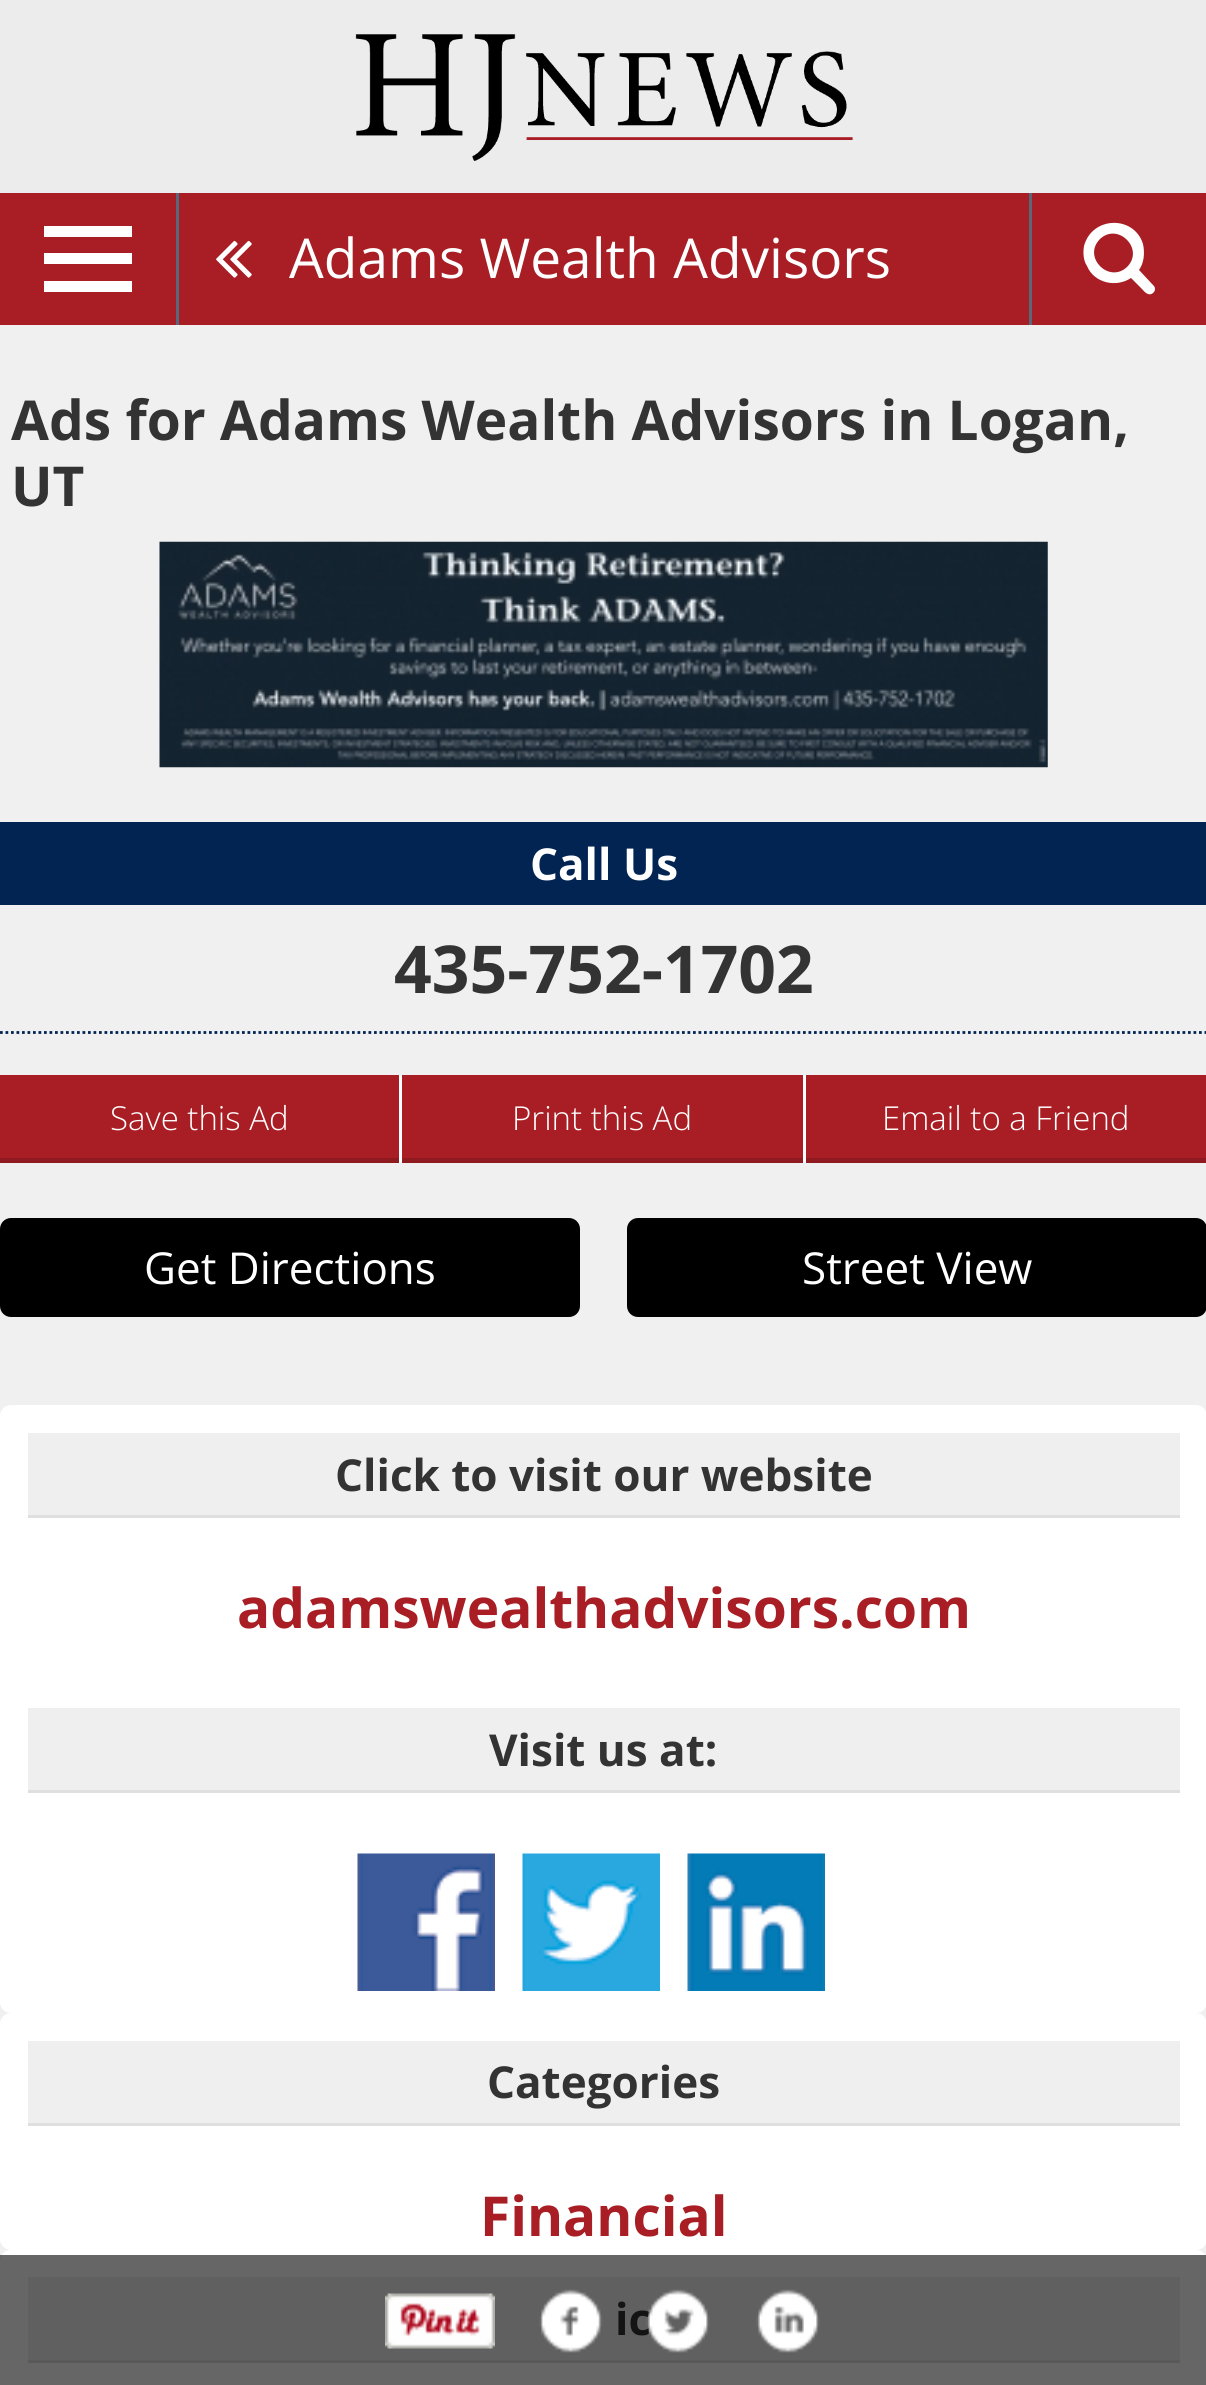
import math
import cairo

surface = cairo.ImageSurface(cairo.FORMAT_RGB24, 1206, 2385)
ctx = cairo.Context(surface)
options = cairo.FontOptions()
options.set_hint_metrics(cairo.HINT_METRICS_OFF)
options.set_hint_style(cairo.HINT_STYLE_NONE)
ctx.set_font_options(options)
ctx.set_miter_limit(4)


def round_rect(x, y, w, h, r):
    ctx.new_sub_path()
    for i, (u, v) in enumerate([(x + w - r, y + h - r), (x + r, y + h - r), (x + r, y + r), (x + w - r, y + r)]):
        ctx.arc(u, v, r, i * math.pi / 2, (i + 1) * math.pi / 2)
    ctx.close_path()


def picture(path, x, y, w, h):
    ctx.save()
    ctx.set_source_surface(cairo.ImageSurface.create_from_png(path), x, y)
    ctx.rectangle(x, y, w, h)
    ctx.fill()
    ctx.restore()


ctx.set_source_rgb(0.941, 0.941, 0.941)
ctx.paint()
ctx.set_source_rgb(0.925, 0.925, 0.925)
ctx.rectangle(0, 0, 1206, 193)
ctx.fill()
picture("img1.png", 355, 34, 498, 127)
ctx.set_source_rgb(0.659, 0.118, 0.141)
ctx.rectangle(0, 193, 1206, 132)
ctx.fill()
ctx.set_source_rgb(1, 1, 1)
ctx.rectangle(44, 226, 88, 11)
ctx.fill()
ctx.rectangle(44, 253, 88, 11)
ctx.fill()
ctx.rectangle(44, 281, 88, 11)
ctx.fill()
ctx.set_source_rgb(0.341, 0.404, 0.486)
ctx.rectangle(1029, 193, 3, 132)
ctx.fill()
ctx.rectangle(176, 193, 3, 132)
ctx.fill()
picture("img2.png", 216, 240, 36, 38)
ctx.select_font_face("Open Sans")
ctx.set_font_size(55)
ctx.set_source_rgb(1, 1, 1)
ctx.move_to(289, 278)
ctx.show_text("Adams Wealth Advisors")
ctx.new_path()
ctx.move_to(1127, 267)
ctx.curve_to(1145, 249, 1118, 222, 1100, 239)
ctx.curve_to(1082, 257, 1109, 284, 1127, 267)
ctx.close_path()
ctx.move_to(1155, 289)
ctx.curve_to(1155, 291, 1154, 292, 1153, 293)
ctx.curve_to(1148, 297, 1144, 291, 1141, 288)
ctx.line_to(1131, 278)
ctx.curve_to(1116, 288, 1094, 283, 1087, 266)
ctx.curve_to(1083, 260, 1083, 252, 1084, 246)
ctx.curve_to(1092, 216, 1134, 215, 1143, 244)
ctx.curve_to(1145, 253, 1144, 263, 1139, 270)
ctx.line_to(1153, 285)
ctx.curve_to(1154, 286, 1155, 287, 1155, 289)
ctx.close_path()
ctx.fill()
ctx.select_font_face("Open Sans", cairo.FONT_SLANT_NORMAL, cairo.FONT_WEIGHT_BOLD)
ctx.set_source_rgb(0.2, 0.2, 0.2)
ctx.move_to(11, 440)
ctx.show_text("Ads for Adams Wealth Advisors in Logan,")
ctx.move_to(11, 506)
ctx.show_text("UT")
picture("img3.png", 159, 541, 889, 227)
ctx.set_source_rgb(0.008, 0.141, 0.322)
ctx.rectangle(0, 822, 1206, 83)
ctx.fill()
ctx.set_font_size(44)
ctx.set_source_rgb(1, 1, 1)
ctx.move_to(530, 880)
ctx.show_text("Call Us")
ctx.new_path()
ctx.move_to(0, 1032.5)
ctx.line_to(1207, 1032.5)
ctx.set_source_rgb(0.008, 0.141, 0.322)
ctx.set_line_width(2.8)
ctx.set_dash([2.75, 2.75])
ctx.stroke()
ctx.set_font_size(66)
ctx.set_source_rgb(0.2, 0.2, 0.2)
ctx.move_to(394, 993)
ctx.show_text("435-752-1702")
ctx.set_source_rgb(0.659, 0.118, 0.141)
ctx.rectangle(0, 1075, 399, 83)
ctx.fill()
ctx.set_source_rgb(0.561, 0.102, 0.122)
ctx.rectangle(0, 1158, 399, 5)
ctx.fill()
ctx.set_source_rgb(1, 1, 1)
ctx.rectangle(399, 1075, 3, 88)
ctx.fill()
ctx.select_font_face("Open Sans Light")
ctx.set_font_size(33)
ctx.move_to(110, 1130)
ctx.show_text("Save this Ad")
ctx.set_source_rgb(0.659, 0.118, 0.141)
ctx.rectangle(402, 1075, 401, 83)
ctx.fill()
ctx.set_source_rgb(0.561, 0.102, 0.122)
ctx.rectangle(402, 1158, 401, 5)
ctx.fill()
ctx.set_source_rgb(1, 1, 1)
ctx.rectangle(803, 1075, 3, 88)
ctx.fill()
ctx.move_to(512, 1130)
ctx.show_text("Print this Ad")
ctx.set_source_rgb(0.659, 0.118, 0.141)
ctx.rectangle(806, 1075, 400, 83)
ctx.fill()
ctx.set_source_rgb(0.561, 0.102, 0.122)
ctx.rectangle(806, 1158, 400, 5)
ctx.fill()
ctx.set_source_rgb(1, 1, 1)
ctx.move_to(882, 1130)
ctx.show_text("Email to a Friend")
ctx.set_source_rgb(0, 0, 0)
round_rect(0, 1218, 580, 99, 11)
ctx.fill()
ctx.select_font_face("Open Sans")
ctx.set_font_size(44)
ctx.set_source_rgb(1, 1, 1)
ctx.move_to(144, 1284)
ctx.show_text("Get Directions")
ctx.set_source_rgb(0, 0, 0)
round_rect(627, 1218, 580, 99, 11)
ctx.fill()
ctx.set_source_rgb(1, 1, 1)
ctx.move_to(802, 1284)
ctx.show_text("Street View")
round_rect(0, 1405, 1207, 608, 11)
ctx.fill()
ctx.set_source_rgb(0.937, 0.937, 0.937)
ctx.rectangle(28, 1433, 1152, 82)
ctx.fill()
ctx.set_source_rgb(0.875, 0.875, 0.875)
ctx.rectangle(28, 1515, 1152, 3)
ctx.fill()
ctx.select_font_face("Open Sans", cairo.FONT_SLANT_NORMAL, cairo.FONT_WEIGHT_BOLD)
ctx.set_source_rgb(0.2, 0.2, 0.2)
ctx.move_to(335, 1491)
ctx.show_text("Click to visit our website")
ctx.set_font_size(55)
ctx.set_source_rgb(0.659, 0.118, 0.141)
ctx.move_to(237, 1628)
ctx.show_text("adamswealthadvisors.com")
ctx.set_source_rgb(0.937, 0.937, 0.937)
ctx.rectangle(28, 1708, 1152, 82)
ctx.fill()
ctx.set_source_rgb(0.875, 0.875, 0.875)
ctx.rectangle(28, 1790, 1152, 3)
ctx.fill()
ctx.set_font_size(44)
ctx.set_source_rgb(0.2, 0.2, 0.2)
ctx.move_to(489, 1766)
ctx.show_text("Visit us at:")
picture("img4.png", 357, 1853, 138, 138)
picture("img5.png", 522, 1853, 138, 138)
picture("img6.png", 687, 1853, 138, 138)
ctx.set_source_rgb(1, 1, 1)
round_rect(0, 2013, 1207, 237, 11)
ctx.fill()
ctx.set_source_rgb(0.937, 0.937, 0.937)
ctx.rectangle(28, 2041, 1152, 82)
ctx.fill()
ctx.set_source_rgb(0.875, 0.875, 0.875)
ctx.rectangle(28, 2123, 1152, 3)
ctx.fill()
ctx.set_source_rgb(0.2, 0.2, 0.2)
ctx.move_to(487, 2098)
ctx.show_text("Categories")
ctx.set_font_size(55)
ctx.set_source_rgb(0.659, 0.118, 0.141)
ctx.move_to(480, 2236)
ctx.show_text("Financial")
ctx.set_source_rgb(1, 1, 1)
round_rect(0, 2250, 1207, 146, 11)
ctx.fill()
ctx.set_source_rgb(0.937, 0.937, 0.937)
ctx.rectangle(28, 2277, 1152, 83)
ctx.fill()
ctx.set_source_rgb(0.875, 0.875, 0.875)
ctx.rectangle(28, 2360, 1152, 3)
ctx.fill()
ctx.set_font_size(44)
ctx.set_source_rgb(0.2, 0.2, 0.2)
ctx.move_to(615, 2335)
ctx.show_text("ic")
ctx.set_source_rgba(0, 0, 0, 0.6)
ctx.rectangle(0, 2255, 1206, 130)
ctx.fill()
picture("img7.png", 385, 2293, 110, 56)
picture("img8.png", 539, 2289, 64, 64)
picture("img9.png", 646, 2289, 64, 64)
picture("img10.png", 756, 2289, 64, 64)
surface.write_to_png("page.png")
